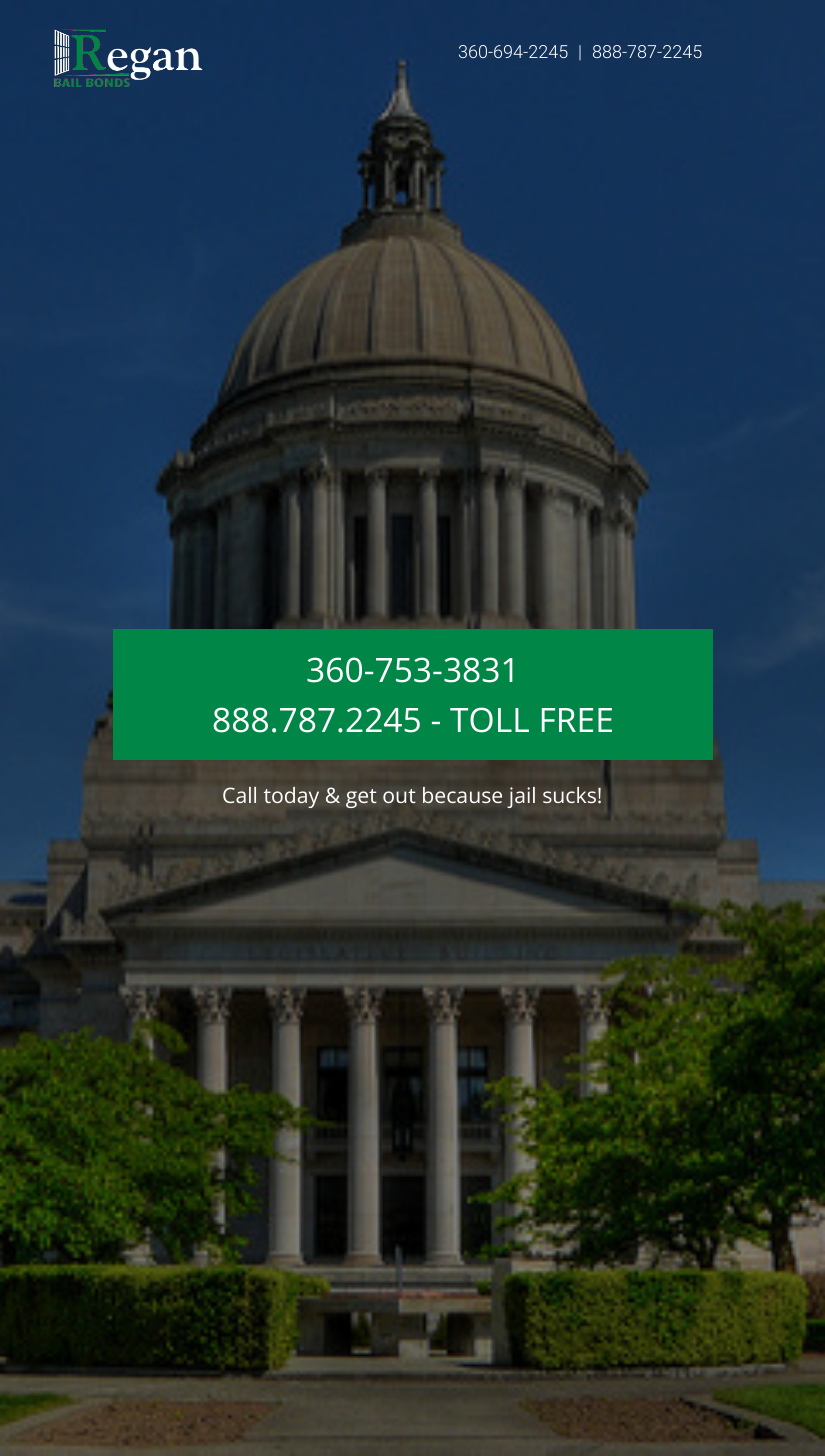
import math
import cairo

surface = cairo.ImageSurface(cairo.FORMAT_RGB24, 825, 1456)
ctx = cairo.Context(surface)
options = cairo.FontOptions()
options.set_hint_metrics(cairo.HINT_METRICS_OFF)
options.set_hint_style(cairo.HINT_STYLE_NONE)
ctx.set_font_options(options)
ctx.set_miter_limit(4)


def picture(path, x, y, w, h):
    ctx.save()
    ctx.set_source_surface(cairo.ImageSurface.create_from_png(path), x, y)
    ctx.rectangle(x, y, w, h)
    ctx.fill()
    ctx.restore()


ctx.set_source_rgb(1, 1, 1)
ctx.paint()
picture("img2.png", 0, 0, 825, 1456)
picture("img1.png", 54, 29, 149, 59)
ctx.select_font_face("Roboto Light")
ctx.set_font_size(18)
ctx.set_source_rgb(1, 1, 1)
ctx.move_to(458, 58)
ctx.show_text("360-694-2245")
ctx.move_to(578, 58)
ctx.show_text("|")
ctx.move_to(592, 58)
ctx.show_text("888-787-2245")
ctx.set_source_rgb(0, 0.529, 0.278)
ctx.rectangle(113, 629, 600, 131)
ctx.fill()
ctx.select_font_face("Open Sans")
ctx.set_font_size(33.6)
ctx.set_source_rgb(1, 1, 1)
ctx.move_to(306, 682)
ctx.show_text("360-753-3831")
ctx.move_to(212, 732)
ctx.show_text("888.787.2245 - TOLL FREE")
ctx.set_font_size(21.25)
ctx.move_to(222, 803)
ctx.show_text("Call today & get out because jail sucks!")
surface.write_to_png("page.png")
